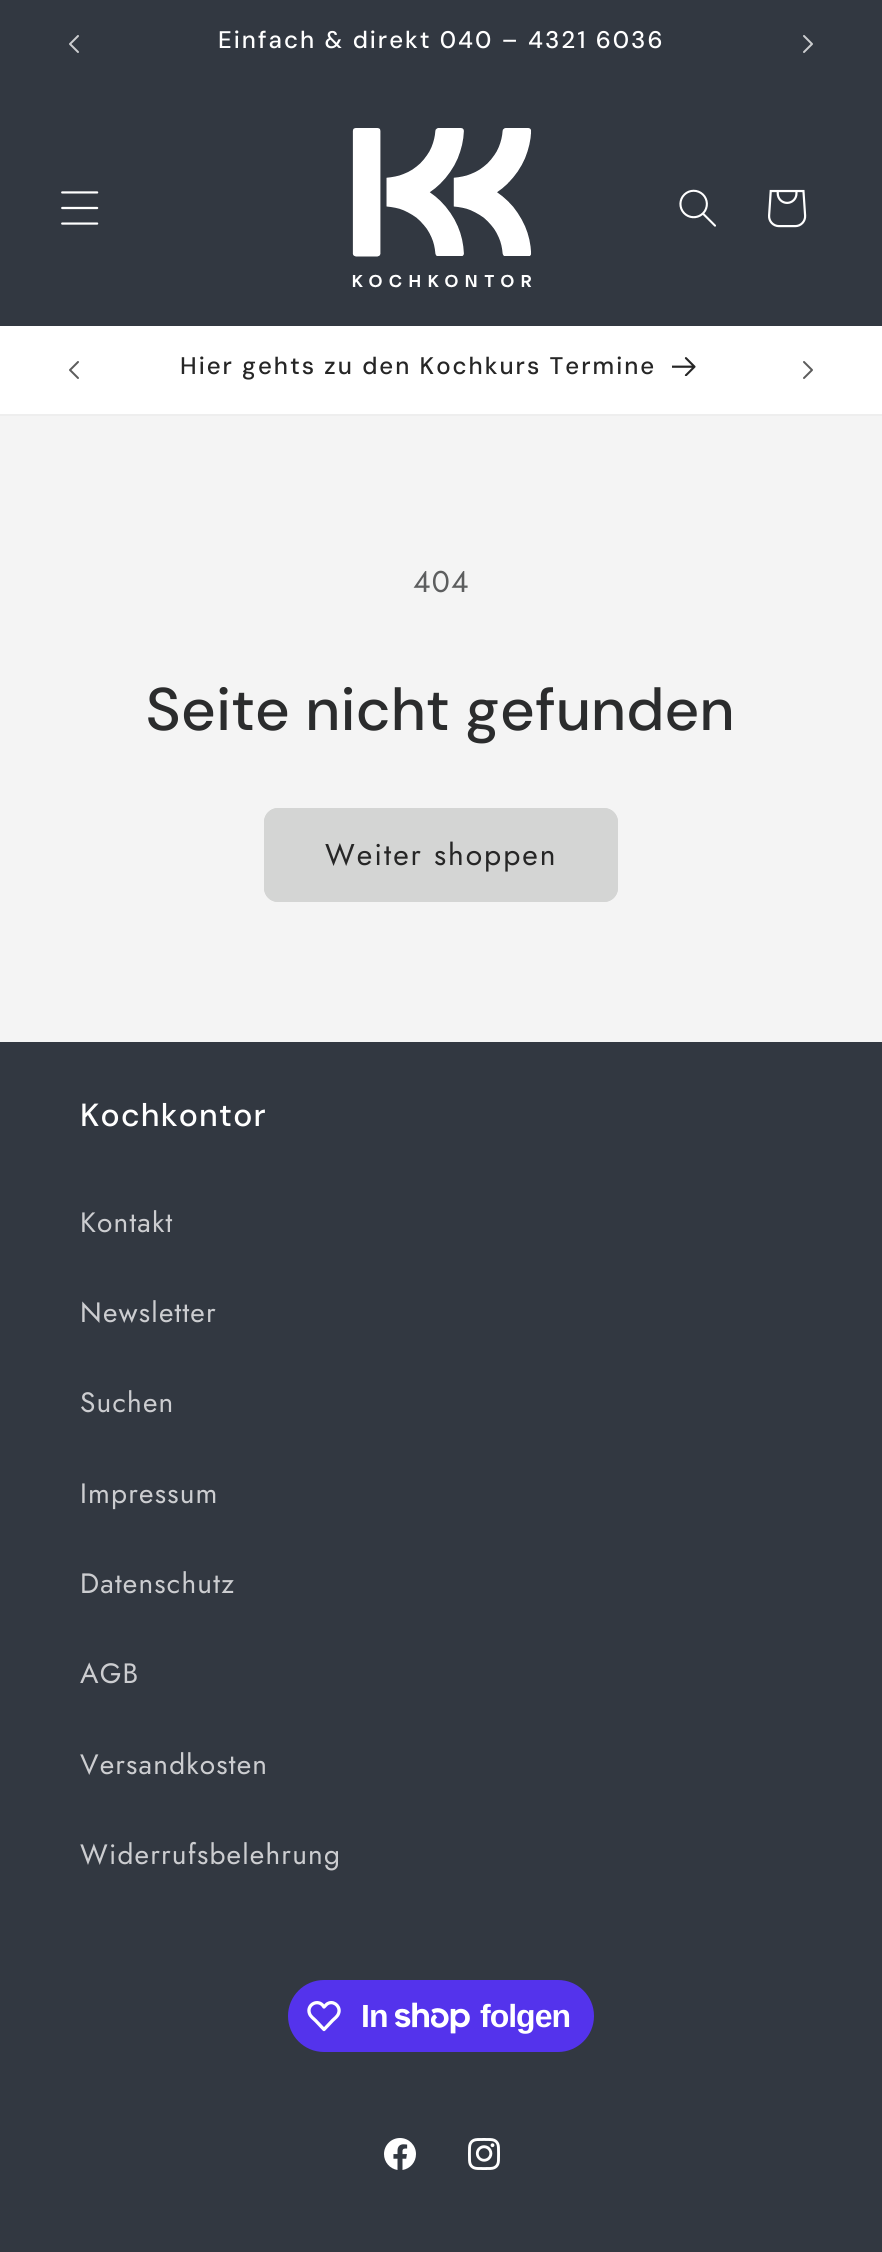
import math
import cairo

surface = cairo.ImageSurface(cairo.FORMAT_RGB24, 882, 2252)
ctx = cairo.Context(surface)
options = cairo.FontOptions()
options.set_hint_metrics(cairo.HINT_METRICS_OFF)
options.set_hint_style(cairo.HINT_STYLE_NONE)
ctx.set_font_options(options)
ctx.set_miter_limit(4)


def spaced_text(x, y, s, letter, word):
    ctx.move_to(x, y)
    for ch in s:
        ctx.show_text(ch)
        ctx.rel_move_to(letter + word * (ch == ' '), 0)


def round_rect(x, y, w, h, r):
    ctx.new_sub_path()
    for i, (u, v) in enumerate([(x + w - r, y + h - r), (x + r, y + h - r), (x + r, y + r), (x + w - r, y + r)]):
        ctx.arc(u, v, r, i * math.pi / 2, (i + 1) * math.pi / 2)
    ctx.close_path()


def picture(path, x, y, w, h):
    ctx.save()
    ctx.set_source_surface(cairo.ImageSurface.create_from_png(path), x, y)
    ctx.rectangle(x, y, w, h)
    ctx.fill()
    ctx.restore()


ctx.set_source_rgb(0.957, 0.957, 0.957)
ctx.paint()
ctx.set_source_rgb(0.196, 0.22, 0.255)
ctx.rectangle(0, 0, 882, 326)
ctx.fill()
picture("img1.png", 61, 191, 38, 34)
picture("img2.png", 352, 128, 180, 160)
picture("img3.png", 679, 189, 37, 38)
picture("img4.png", 768, 189, 39, 39)
picture("img5.png", 69, 35, 10, 18)
ctx.select_font_face("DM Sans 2 Medium")
ctx.set_font_size(24)
ctx.set_source_rgb(1, 1, 1)
spaced_text(218, 48, "Einfach & direkt 040 – 4321 6036", 2, 0)
picture("img6.png", 803, 35, 10, 18)
ctx.rectangle(0, 326, 882, 88)
ctx.fill()
ctx.set_source_rgb(0.933, 0.933, 0.933)
ctx.rectangle(0, 414, 882, 2)
ctx.fill()
picture("img7.png", 69, 361, 10, 18)
ctx.set_source_rgb(0.149, 0.149, 0.149)
spaced_text(180, 374, "Hier gehts zu den Kochkurs Termine", 2, 0)
picture("img8.png", 672, 357, 24, 19)
picture("img9.png", 803, 361, 10, 18)
ctx.select_font_face("Jost")
ctx.set_font_size(30)
ctx.set_source_rgb(0.365, 0.369, 0.373)
spaced_text(413, 592, "404", 1.2, 0)
ctx.select_font_face("DM Sans Medium")
ctx.set_font_size(60)
ctx.set_source_rgb(0.169, 0.173, 0.176)
spaced_text(146, 730, "Seite nicht gefunden", 1.2, 0)
ctx.set_source_rgb(0.831, 0.835, 0.831)
round_rect(264, 808, 354, 94, 14)
ctx.fill()
round_rect(265, 809, 352, 92, 13)
ctx.stroke()
ctx.select_font_face("Jost")
ctx.set_font_size(30)
ctx.set_source_rgb(0.149, 0.149, 0.149)
spaced_text(325, 865, "Weiter shoppen", 2, 0)
ctx.set_source_rgb(0.196, 0.22, 0.255)
ctx.rectangle(0, 1042, 882, 1210)
ctx.fill()
ctx.select_font_face("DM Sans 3 Medium")
ctx.set_font_size(32)
ctx.set_source_rgb(1, 1, 1)
spaced_text(80, 1126, "Kochkontor", 1.2, 0)
ctx.select_font_face("Jost")
ctx.set_font_size(28)
ctx.set_source_rgb(0.8, 0.804, 0.816)
spaced_text(80, 1232, "Kontakt", 1.2, 0)
spaced_text(80, 1322, "Newsletter", 1.2, 0)
spaced_text(80, 1412, "Suchen", 1.2, 0)
spaced_text(80, 1503, "Impressum", 1.2, 0)
spaced_text(80, 1593, "Datenschutz", 1.2, 0)
spaced_text(80, 1683, "AGB", 1.2, 0)
spaced_text(80, 1774, "Versandkosten", 1.2, 0)
spaced_text(80, 1864, "Widerrufsbelehrung", 1.2, 0)
ctx.set_source_rgb(0.329, 0.2, 0.922)
round_rect(288, 1980, 306, 72, 36)
ctx.fill()
ctx.new_path()
ctx.move_to(322.5, 2005)
ctx.line_to(324, 2007)
ctx.curve_to(325.5, 2005.5, 327, 2003.5, 329, 2003)
ctx.curve_to(335, 2001, 341, 2007.5, 338.5, 2013.5)
ctx.curve_to(337.5, 2016.5, 334.5, 2018.5, 332.5, 2020.5)
ctx.line_to(324, 2029.5)
ctx.line_to(315.5, 2020.5)
ctx.curve_to(313.5, 2018.5, 310.5, 2016.5, 309.5, 2013.5)
ctx.curve_to(306.5, 2005.5, 316.5, 1999, 322.5, 2005)
ctx.close_path()
ctx.set_source_rgb(1, 1, 1)
ctx.set_line_width(3.3)
ctx.set_line_join(cairo.LINE_JOIN_ROUND)
ctx.stroke()
ctx.select_font_face("Liberation Sans", cairo.FONT_SLANT_NORMAL, cairo.FONT_WEIGHT_BOLD)
ctx.set_font_size(32)
spaced_text(361, 2027, "In", -1, 0)
picture("img10.png", 395, 2002, 75, 32)
spaced_text(480, 2027, "folgen", -1, 0)
picture("img11.png", 384, 2138, 32, 32)
picture("img12.png", 468, 2138, 32, 32)
surface.write_to_png("page.png")
